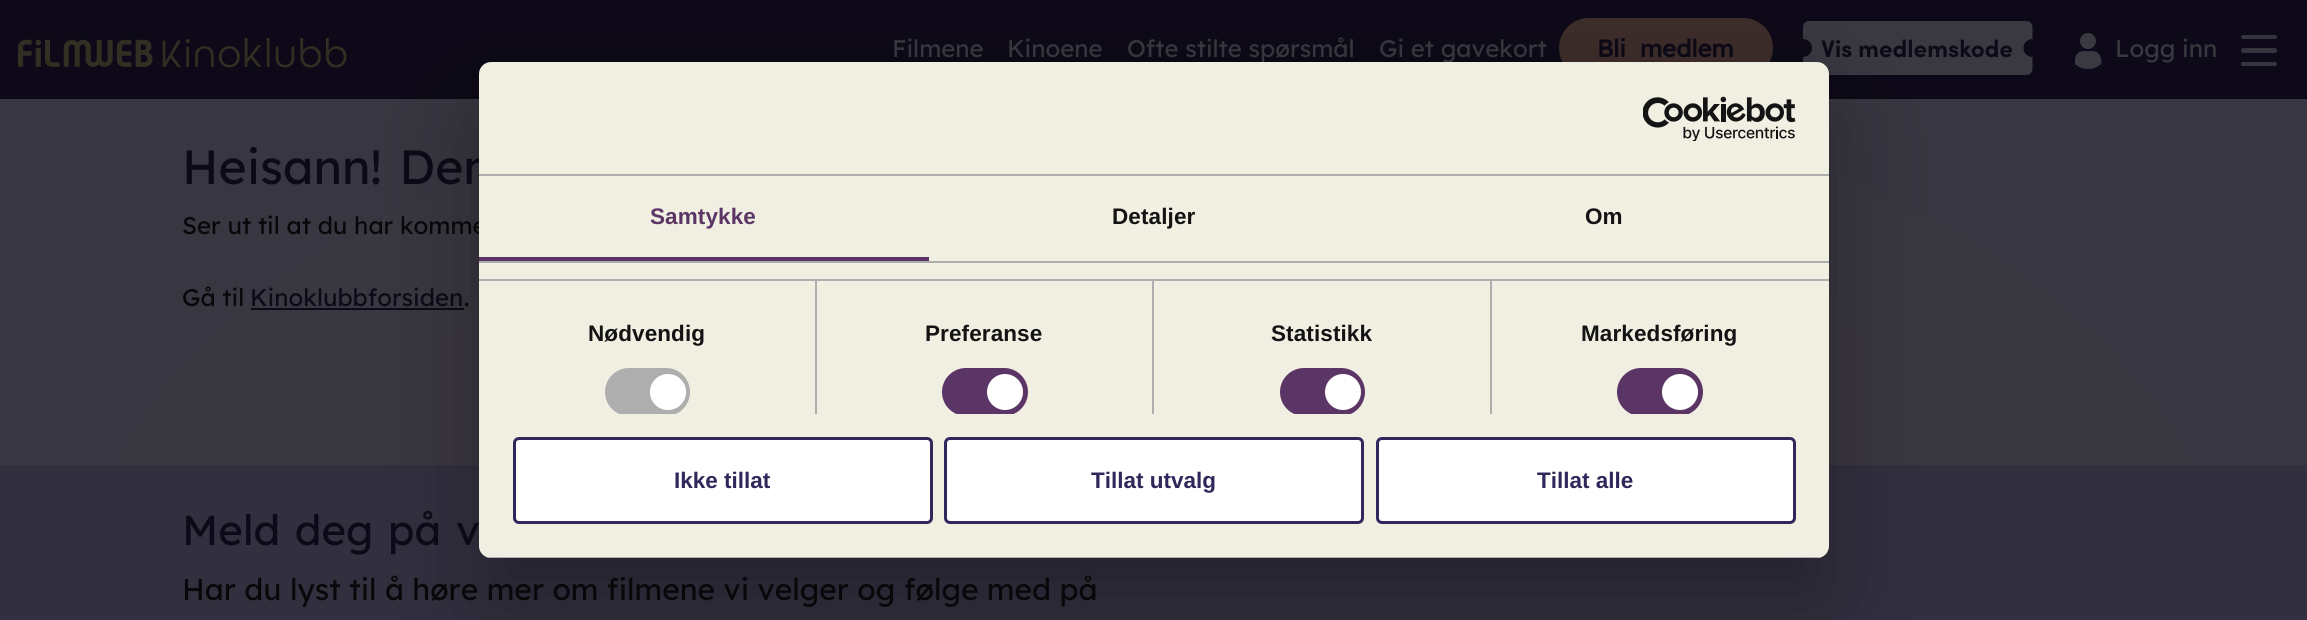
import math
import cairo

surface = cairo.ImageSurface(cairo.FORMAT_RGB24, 2307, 620)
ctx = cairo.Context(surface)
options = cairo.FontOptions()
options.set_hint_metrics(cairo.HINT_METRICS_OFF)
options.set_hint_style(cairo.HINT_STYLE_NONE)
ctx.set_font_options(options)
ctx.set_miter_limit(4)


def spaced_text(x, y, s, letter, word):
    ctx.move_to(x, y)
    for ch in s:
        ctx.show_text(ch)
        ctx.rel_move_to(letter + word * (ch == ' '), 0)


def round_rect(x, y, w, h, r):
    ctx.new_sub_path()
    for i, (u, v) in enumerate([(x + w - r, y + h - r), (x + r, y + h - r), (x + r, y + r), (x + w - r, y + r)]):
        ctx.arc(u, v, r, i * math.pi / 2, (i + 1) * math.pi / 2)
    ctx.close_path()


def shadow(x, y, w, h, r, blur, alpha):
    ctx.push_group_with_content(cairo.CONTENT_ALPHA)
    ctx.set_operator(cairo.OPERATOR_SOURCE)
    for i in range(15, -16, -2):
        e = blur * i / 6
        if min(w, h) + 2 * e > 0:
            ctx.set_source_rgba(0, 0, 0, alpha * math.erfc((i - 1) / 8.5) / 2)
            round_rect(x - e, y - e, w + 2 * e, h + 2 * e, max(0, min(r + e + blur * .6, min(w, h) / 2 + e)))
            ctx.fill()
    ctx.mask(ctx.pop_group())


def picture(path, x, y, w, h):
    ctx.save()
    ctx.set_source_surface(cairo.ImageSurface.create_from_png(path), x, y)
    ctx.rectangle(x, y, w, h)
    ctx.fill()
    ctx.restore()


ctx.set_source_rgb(1, 1, 1)
ctx.paint()
gradient = cairo.RadialGradient(0, 0, 0, 0, 0, 1)
gradient.set_matrix(cairo.Matrix(1 / 1154, 0, 0, 1 / 626, -1 * 1154 / 1154, -1 * 626 / 626))
gradient.add_color_stop_rgba(0, 0.239, 0.235, 0.251, 1)
gradient.add_color_stop_rgba(0.13, 0.231, 0.227, 0.247, 1)
gradient.add_color_stop_rgba(0.36, 0.227, 0.22, 0.251, 1)
gradient.add_color_stop_rgba(0.55, 0.231, 0.224, 0.247, 1)
gradient.add_color_stop_rgba(1, 0.22, 0.212, 0.251, 1)
ctx.set_source(gradient)
ctx.rectangle(0, 99, 2307, 366)
ctx.fill()
ctx.set_source_rgb(0.051, 0.039, 0.094)
ctx.rectangle(0, 0, 2307, 99)
ctx.fill()
picture("img1.png", 18, 38, 329, 30)
ctx.select_font_face("Lexend")
ctx.set_font_size(24)
ctx.set_source_rgb(0.224, 0.22, 0.247)
ctx.move_to(892, 57)
ctx.show_text("Filmene")
ctx.move_to(1007, 57)
ctx.show_text("Kinoene")
ctx.move_to(1127, 57)
ctx.show_text("Ofte stilte spørsmål")
ctx.move_to(1379, 57)
ctx.show_text("Gi et gavekort")
ctx.set_source_rgb(0.239, 0.176, 0.165)
round_rect(1559, 18, 214, 60, 30)
ctx.fill()
ctx.select_font_face("Lexend", cairo.FONT_SLANT_NORMAL, cairo.FONT_WEIGHT_BOLD)
ctx.set_source_rgb(0.051, 0.039, 0.094)
ctx.move_to(1597, 57)
ctx.show_text("Bli")
ctx.move_to(1640, 57)
ctx.show_text("medlem")
picture("img2.png", 1803, 21, 230, 54)
picture("img3.png", 2075, 33, 27, 36)
ctx.select_font_face("Lexend")
ctx.set_source_rgb(0.224, 0.22, 0.247)
ctx.move_to(2115, 57)
ctx.show_text("Logg inn")
ctx.set_source_rgb(0.212, 0.208, 0.243)
round_rect(2241, 35, 36, 4, 2)
ctx.fill()
round_rect(2241, 48, 36, 5, 2.5)
ctx.fill()
round_rect(2241, 62, 36, 4, 2)
ctx.fill()
ctx.set_font_size(48)
ctx.set_source_rgb(0.051, 0.039, 0.094)
spaced_text(182, 184, "Heisann! Den", 0, 4)
ctx.set_font_size(24)
ctx.set_source_rgb(0.031, 0.035, 0.039)
ctx.move_to(182, 234)
ctx.show_text("Ser ut til at du har komme")
ctx.move_to(182, 306)
ctx.show_text("Gå til")
ctx.set_source_rgb(0.051, 0.039, 0.094)
ctx.move_to(250, 306)
ctx.show_text("Kinoklubbforsiden")
ctx.rectangle(251, 308, 213, 2)
ctx.fill()
ctx.set_source_rgb(0.031, 0.035, 0.039)
ctx.move_to(464, 306)
ctx.show_text(".")
ctx.set_source_rgb(0.196, 0.188, 0.247)
ctx.rectangle(0, 465, 2307, 155)
ctx.fill()
ctx.set_source_rgb(0, 0, 0)
shadow(479, 110, 1350, 496, 12, 51, 0.3)
ctx.set_source_rgb(0.945, 0.933, 0.886)
round_rect(479, 62, 1350, 496, 12)
ctx.fill()
ctx.set_source_rgb(0.682, 0.682, 0.686)
ctx.rectangle(479, 174, 1350, 2)
ctx.fill()
picture("img4.png", 1643, 96, 153, 45)
ctx.rectangle(479, 261, 1350, 2)
ctx.fill()
ctx.set_source_rgb(0.357, 0.208, 0.396)
ctx.rectangle(479, 257, 450, 4)
ctx.fill()
ctx.select_font_face("Liberation Sans", cairo.FONT_SLANT_NORMAL, cairo.FONT_WEIGHT_BOLD)
ctx.set_font_size(22.5)
spaced_text(650, 224, "Samtykke", 0.1, 0)
ctx.set_source_rgb(0.078, 0.078, 0.078)
spaced_text(1112, 224, "Detaljer", 0.1, 0)
spaced_text(1585, 224, "Om", 0.1, 0)
ctx.set_source_rgb(0.682, 0.682, 0.686)
ctx.rectangle(479, 279, 1350, 2)
ctx.fill()
ctx.rectangle(815, 281, 2, 133)
ctx.fill()
ctx.set_source_rgb(0.078, 0.078, 0.078)
spaced_text(588, 341, "Nødvendig", 0.1, 0)
ctx.save()
ctx.rectangle(479, 263, 1350, 151)
ctx.clip()
ctx.set_source_rgb(0.682, 0.682, 0.686)
round_rect(605, 368, 85, 48, 24)
ctx.fill()
ctx.restore()
ctx.set_source_rgb(1, 1, 1)
ctx.arc(668, 392, 18, 0, 2 * math.pi)
ctx.fill()
ctx.set_source_rgb(0.682, 0.682, 0.686)
ctx.rectangle(1152, 281, 2, 133)
ctx.fill()
ctx.set_source_rgb(0.078, 0.078, 0.078)
spaced_text(925, 341, "Preferanse", 0.1, 0)
ctx.save()
ctx.rectangle(479, 263, 1350, 151)
ctx.clip()
ctx.set_source_rgb(0.357, 0.208, 0.396)
round_rect(942, 368, 86, 48, 24)
ctx.fill()
ctx.restore()
ctx.set_source_rgb(1, 1, 1)
ctx.arc(1005, 392, 18, 0, 2 * math.pi)
ctx.fill()
ctx.set_source_rgb(0.682, 0.682, 0.686)
ctx.rectangle(1490, 281, 2, 133)
ctx.fill()
ctx.set_source_rgb(0.078, 0.078, 0.078)
spaced_text(1271, 341, "Statistikk", 0.1, 0)
ctx.save()
ctx.rectangle(479, 263, 1350, 151)
ctx.clip()
ctx.set_source_rgb(0.357, 0.208, 0.396)
round_rect(1280, 368, 85, 48, 24)
ctx.fill()
ctx.restore()
ctx.set_source_rgb(1, 1, 1)
ctx.arc(1343, 392, 18, 0, 2 * math.pi)
ctx.fill()
ctx.set_source_rgb(0.078, 0.078, 0.078)
spaced_text(1581, 341, "Markedsføring", 0.1, 0)
ctx.save()
ctx.rectangle(479, 263, 1350, 151)
ctx.clip()
ctx.set_source_rgb(0.357, 0.208, 0.396)
round_rect(1617, 368, 86, 48, 24)
ctx.fill()
ctx.restore()
ctx.set_source_rgb(1, 1, 1)
ctx.arc(1680, 392, 18, 0, 2 * math.pi)
ctx.fill()
ctx.save()
round_rect(479, 62, 1350, 496, 12)
ctx.clip()
ctx.set_source_rgb(0.682, 0.682, 0.686)
ctx.rectangle(479, 557, 1350, 1)
ctx.fill()
ctx.restore()
round_rect(514.5, 438.5, 417, 84, 4.5)
ctx.fill_preserve()
ctx.set_source_rgb(0.192, 0.153, 0.353)
ctx.set_line_width(3)
ctx.stroke()
ctx.move_to(674, 488)
ctx.show_text("Ikke tillat")
ctx.set_source_rgb(1, 1, 1)
round_rect(945.5, 438.5, 417, 84, 4.5)
ctx.fill_preserve()
ctx.set_source_rgb(0.192, 0.153, 0.353)
ctx.stroke()
ctx.move_to(1091, 488)
ctx.show_text("Tillat utvalg")
ctx.set_source_rgb(1, 1, 1)
round_rect(1377.5, 438.5, 417, 84, 4.5)
ctx.fill_preserve()
ctx.set_source_rgb(0.192, 0.153, 0.353)
ctx.stroke()
ctx.move_to(1537, 488)
ctx.show_text("Tillat alle")
ctx.select_font_face("Lexend")
ctx.set_font_size(42)
ctx.set_source_rgb(0.051, 0.039, 0.094)
spaced_text(182, 545, "Meld deg på v", 0, 3)
ctx.set_font_size(30)
ctx.set_source_rgb(0.031, 0.035, 0.039)
ctx.move_to(182, 600)
ctx.show_text("Har du lyst til å høre mer om filmene vi velger og følge med på")
surface.write_to_png("page.png")
